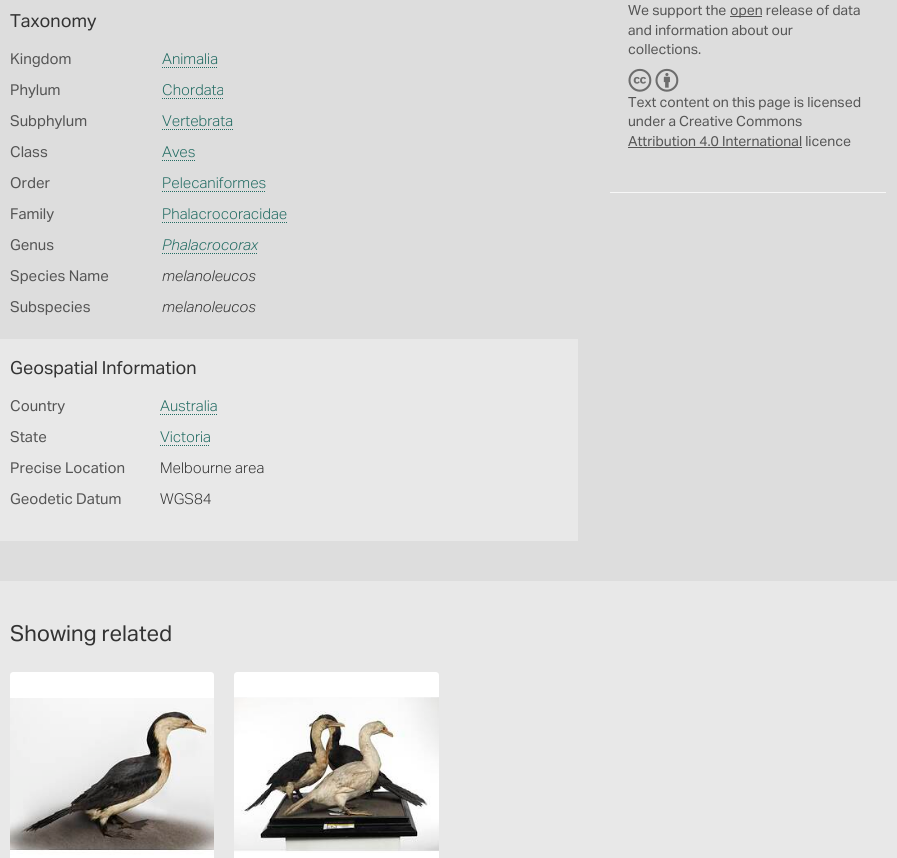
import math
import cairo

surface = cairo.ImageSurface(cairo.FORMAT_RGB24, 897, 858)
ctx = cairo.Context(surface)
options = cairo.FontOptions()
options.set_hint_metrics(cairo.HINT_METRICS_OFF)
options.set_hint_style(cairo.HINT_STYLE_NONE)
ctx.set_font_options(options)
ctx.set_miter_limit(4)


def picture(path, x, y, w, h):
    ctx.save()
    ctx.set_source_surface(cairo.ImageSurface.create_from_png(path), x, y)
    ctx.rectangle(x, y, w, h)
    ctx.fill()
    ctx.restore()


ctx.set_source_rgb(0.867, 0.867, 0.867)
ctx.paint()
ctx.select_font_face("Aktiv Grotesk")
ctx.set_font_size(18)
ctx.set_source_rgb(0.2, 0.2, 0.2)
ctx.move_to(10, 27)
ctx.show_text("Taxonomy")
ctx.set_font_size(15)
ctx.set_source_rgb(0.333, 0.333, 0.333)
ctx.move_to(10, 64)
ctx.show_text("Kingdom")
ctx.select_font_face("Aktiv Grotesk Light")
ctx.set_source_rgb(0.137, 0.424, 0.388)
ctx.move_to(162, 64)
ctx.show_text("Animalia")
ctx.new_path()
ctx.move_to(162, 67.5)
ctx.line_to(218, 67.5)
ctx.set_line_width(1)
ctx.set_dash([1, 1])
ctx.stroke()
ctx.select_font_face("Aktiv Grotesk")
ctx.set_source_rgb(0.333, 0.333, 0.333)
ctx.move_to(10, 95)
ctx.show_text("Phylum")
ctx.select_font_face("Aktiv Grotesk Light")
ctx.set_source_rgb(0.137, 0.424, 0.388)
ctx.move_to(162, 95)
ctx.show_text("Chordata")
ctx.new_path()
ctx.move_to(162, 98.5)
ctx.line_to(224, 98.5)
ctx.stroke()
ctx.select_font_face("Aktiv Grotesk")
ctx.set_source_rgb(0.333, 0.333, 0.333)
ctx.move_to(10, 126)
ctx.show_text("Subphylum")
ctx.select_font_face("Aktiv Grotesk Light")
ctx.set_source_rgb(0.137, 0.424, 0.388)
ctx.move_to(162, 126)
ctx.show_text("Vertebrata")
ctx.new_path()
ctx.move_to(162, 129.5)
ctx.line_to(233, 129.5)
ctx.stroke()
ctx.select_font_face("Aktiv Grotesk")
ctx.set_source_rgb(0.333, 0.333, 0.333)
ctx.move_to(10, 157)
ctx.show_text("Class")
ctx.select_font_face("Aktiv Grotesk Light")
ctx.set_source_rgb(0.137, 0.424, 0.388)
ctx.move_to(162, 157)
ctx.show_text("Aves")
ctx.new_path()
ctx.move_to(162, 160.5)
ctx.line_to(195, 160.5)
ctx.stroke()
ctx.select_font_face("Aktiv Grotesk")
ctx.set_source_rgb(0.333, 0.333, 0.333)
ctx.move_to(10, 188)
ctx.show_text("Order")
ctx.select_font_face("Aktiv Grotesk Light")
ctx.set_source_rgb(0.137, 0.424, 0.388)
ctx.move_to(162, 188)
ctx.show_text("Pelecaniformes")
ctx.new_path()
ctx.move_to(162, 191.5)
ctx.line_to(266, 191.5)
ctx.stroke()
ctx.select_font_face("Aktiv Grotesk")
ctx.set_source_rgb(0.333, 0.333, 0.333)
ctx.move_to(10, 219)
ctx.show_text("Family")
ctx.select_font_face("Aktiv Grotesk Light")
ctx.set_source_rgb(0.137, 0.424, 0.388)
ctx.move_to(162, 219)
ctx.show_text("Phalacrocoracidae")
ctx.new_path()
ctx.move_to(162, 222.5)
ctx.line_to(287, 222.5)
ctx.stroke()
ctx.select_font_face("Aktiv Grotesk")
ctx.set_source_rgb(0.333, 0.333, 0.333)
ctx.move_to(10, 250)
ctx.show_text("Genus")
ctx.select_font_face("Aktiv Grotesk Light", cairo.FONT_SLANT_ITALIC)
ctx.set_source_rgb(0.137, 0.424, 0.388)
ctx.move_to(162, 250)
ctx.show_text("Phalacrocorax")
ctx.new_path()
ctx.move_to(162, 253.5)
ctx.line_to(258, 253.5)
ctx.stroke()
ctx.select_font_face("Aktiv Grotesk")
ctx.set_source_rgb(0.333, 0.333, 0.333)
ctx.move_to(10, 281)
ctx.show_text("Species Name")
ctx.select_font_face("Aktiv Grotesk Light", cairo.FONT_SLANT_ITALIC)
ctx.set_source_rgb(0.2, 0.2, 0.2)
ctx.move_to(162, 281)
ctx.show_text("melanoleucos")
ctx.select_font_face("Aktiv Grotesk")
ctx.set_source_rgb(0.333, 0.333, 0.333)
ctx.move_to(10, 312)
ctx.show_text("Subspecies")
ctx.select_font_face("Aktiv Grotesk Light", cairo.FONT_SLANT_ITALIC)
ctx.set_source_rgb(0.2, 0.2, 0.2)
ctx.move_to(162, 312)
ctx.show_text("melanoleucos")
ctx.set_source_rgb(0.91, 0.91, 0.91)
ctx.rectangle(0, 339, 578, 202)
ctx.fill()
ctx.select_font_face("Aktiv Grotesk")
ctx.set_font_size(18)
ctx.set_source_rgb(0.2, 0.2, 0.2)
ctx.move_to(10, 374)
ctx.show_text("Geospatial Information")
ctx.set_font_size(15)
ctx.set_source_rgb(0.333, 0.333, 0.333)
ctx.move_to(10, 411)
ctx.show_text("Country")
ctx.select_font_face("Aktiv Grotesk Light")
ctx.set_source_rgb(0.137, 0.424, 0.388)
ctx.move_to(160, 411)
ctx.show_text("Australia")
ctx.new_path()
ctx.move_to(160, 414.5)
ctx.line_to(217, 414.5)
ctx.set_source_rgb(0.137, 0.427, 0.392)
ctx.stroke()
ctx.select_font_face("Aktiv Grotesk")
ctx.set_source_rgb(0.333, 0.333, 0.333)
ctx.move_to(10, 442)
ctx.show_text("State")
ctx.select_font_face("Aktiv Grotesk Light")
ctx.set_source_rgb(0.137, 0.424, 0.388)
ctx.move_to(160, 442)
ctx.show_text("Victoria")
ctx.new_path()
ctx.move_to(160, 445.5)
ctx.line_to(210, 445.5)
ctx.set_source_rgb(0.137, 0.427, 0.392)
ctx.stroke()
ctx.select_font_face("Aktiv Grotesk")
ctx.set_source_rgb(0.333, 0.333, 0.333)
ctx.move_to(10, 473)
ctx.show_text("Precise Location")
ctx.select_font_face("Aktiv Grotesk Light")
ctx.set_source_rgb(0.2, 0.2, 0.2)
ctx.move_to(160, 473)
ctx.show_text("Melbourne area")
ctx.select_font_face("Aktiv Grotesk")
ctx.set_source_rgb(0.333, 0.333, 0.333)
ctx.move_to(10, 504)
ctx.show_text("Geodetic Datum")
ctx.select_font_face("Aktiv Grotesk Light")
ctx.set_source_rgb(0.2, 0.2, 0.2)
ctx.move_to(160, 504)
ctx.show_text("WGS84")
ctx.set_source_rgb(0.965, 0.965, 0.965)
ctx.rectangle(610, 192, 276, 1)
ctx.fill()
ctx.select_font_face("Aktiv Grotesk")
ctx.set_font_size(14)
ctx.set_source_rgb(0.333, 0.333, 0.333)
ctx.move_to(628, 15)
ctx.show_text("We support the")
ctx.rectangle(730, 16, 32, 1)
ctx.fill()
ctx.move_to(730, 15)
ctx.show_text("open release of data")
ctx.move_to(628, 35)
ctx.show_text("and information about our")
ctx.move_to(628, 54)
ctx.show_text("collections.")
picture("img1.png", 628, 68, 24, 24)
picture("img2.png", 655, 68, 24, 24)
ctx.move_to(628, 107)
ctx.show_text("Text content on this page is licensed")
ctx.move_to(628, 126)
ctx.show_text("under a Creative Commons")
ctx.move_to(628, 146)
ctx.show_text("Attribution 4.0 International licence")
ctx.rectangle(628, 147, 174, 1)
ctx.fill()
ctx.set_source_rgb(0.91, 0.91, 0.91)
ctx.rectangle(0, 581, 897, 277)
ctx.fill()
ctx.set_font_size(22)
ctx.set_source_rgb(0.2, 0.2, 0.2)
ctx.move_to(10, 641)
ctx.show_text("Showing related")
ctx.set_source_rgb(1, 1, 1)
ctx.new_path()
ctx.move_to(13, 672)
ctx.line_to(211, 672)
ctx.curve_to(212.5, 672, 214, 673.5, 214, 675)
ctx.line_to(214, 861)
ctx.line_to(10, 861)
ctx.line_to(10, 675)
ctx.curve_to(10, 673.5, 11.5, 672, 13, 672)
ctx.close_path()
ctx.fill()
picture("img3.png", 10, 698, 204, 157)
ctx.new_path()
ctx.move_to(237, 672)
ctx.line_to(436, 672)
ctx.curve_to(437.5, 672, 439, 673.5, 439, 675)
ctx.line_to(439, 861)
ctx.line_to(234, 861)
ctx.line_to(234, 675)
ctx.curve_to(234, 673.5, 235.5, 672, 237, 672)
ctx.close_path()
ctx.fill()
picture("img4.png", 234, 697, 205, 156)
surface.write_to_png("page.png")
